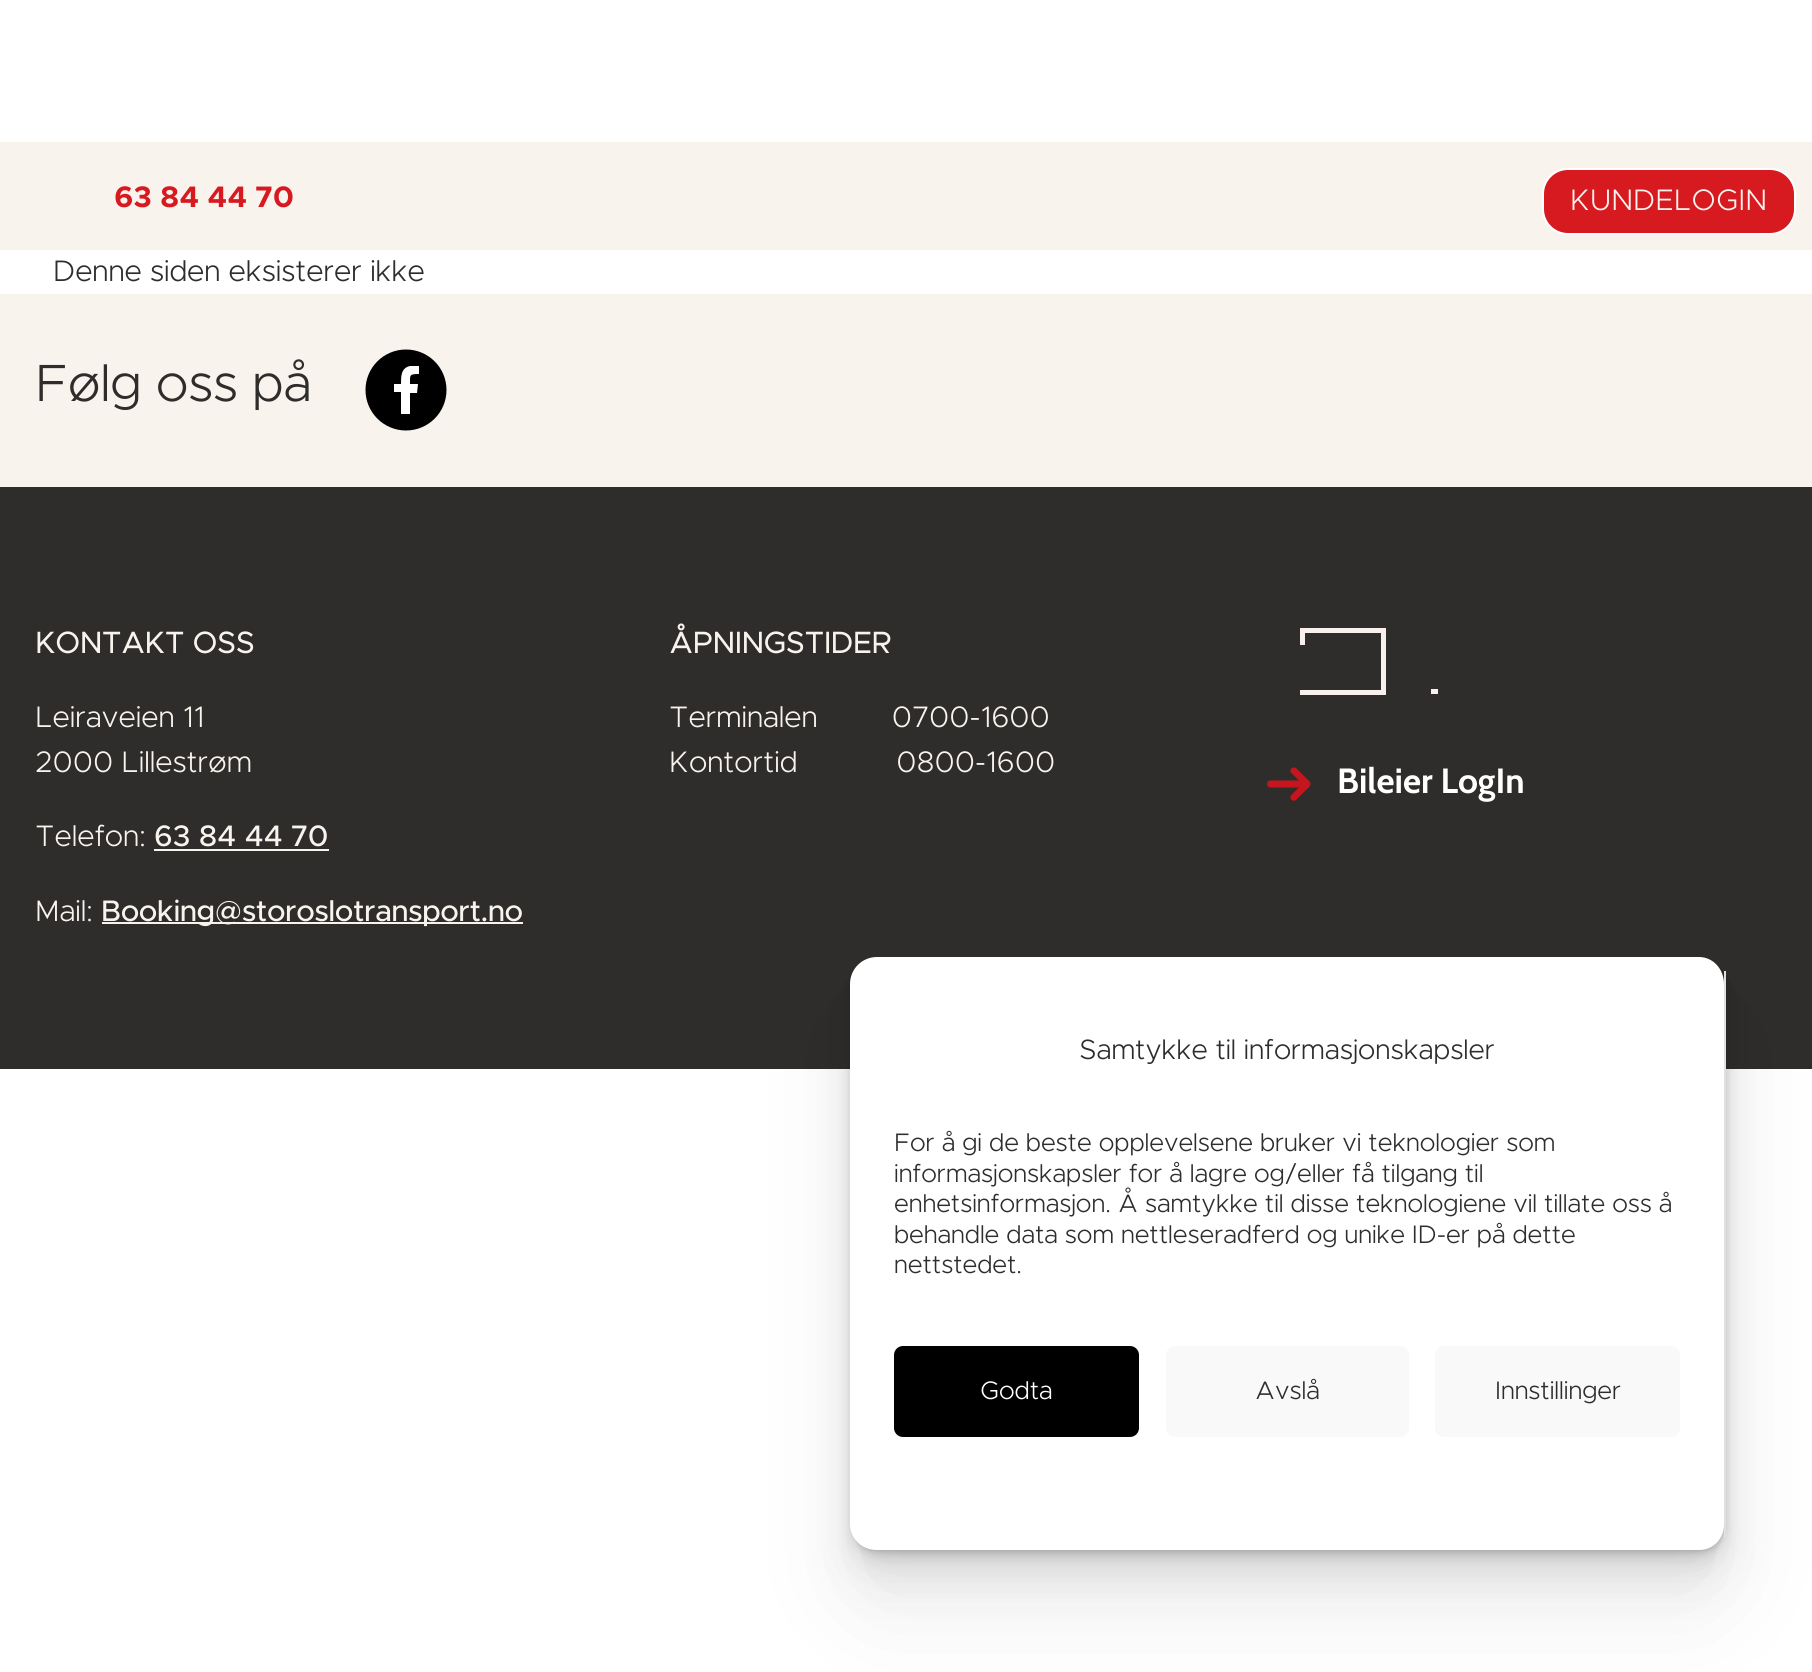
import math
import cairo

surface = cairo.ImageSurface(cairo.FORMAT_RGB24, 1812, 1672)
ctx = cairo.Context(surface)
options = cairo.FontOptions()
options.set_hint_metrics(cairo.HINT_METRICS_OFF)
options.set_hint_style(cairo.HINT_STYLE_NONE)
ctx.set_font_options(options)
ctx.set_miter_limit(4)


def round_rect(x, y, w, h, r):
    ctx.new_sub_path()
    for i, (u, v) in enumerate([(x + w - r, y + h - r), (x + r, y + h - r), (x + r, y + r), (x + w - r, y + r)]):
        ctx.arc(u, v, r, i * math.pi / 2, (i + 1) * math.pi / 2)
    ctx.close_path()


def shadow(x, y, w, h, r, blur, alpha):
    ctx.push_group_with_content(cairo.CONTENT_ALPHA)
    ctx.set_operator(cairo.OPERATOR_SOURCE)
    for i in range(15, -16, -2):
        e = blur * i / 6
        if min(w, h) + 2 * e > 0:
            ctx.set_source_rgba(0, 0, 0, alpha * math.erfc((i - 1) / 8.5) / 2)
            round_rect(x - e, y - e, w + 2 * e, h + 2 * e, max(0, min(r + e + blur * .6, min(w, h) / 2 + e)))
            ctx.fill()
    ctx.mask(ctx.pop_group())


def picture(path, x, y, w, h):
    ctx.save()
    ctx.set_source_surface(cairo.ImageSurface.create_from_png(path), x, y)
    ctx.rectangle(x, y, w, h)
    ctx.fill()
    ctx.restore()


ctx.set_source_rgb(1, 1, 1)
ctx.paint()
ctx.set_source_rgb(0.976, 0.953, 0.933)
ctx.rectangle(0, 142, 1812, 108)
ctx.fill()
ctx.select_font_face("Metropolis", cairo.FONT_SLANT_NORMAL, cairo.FONT_WEIGHT_BOLD)
ctx.set_font_size(29.75)
ctx.set_source_rgb(0.843, 0.098, 0.125)
ctx.move_to(114, 207)
ctx.show_text("63 84 44 70")
round_rect(1543, 169, 252, 65, 25)
ctx.fill_preserve()
ctx.set_source_rgb(1, 1, 1)
ctx.stroke()
ctx.select_font_face("Metropolis Light")
ctx.set_source_rgb(0.976, 0.953, 0.933)
ctx.move_to(1570, 210)
ctx.show_text("KUNDELOGIN")
ctx.set_source_rgb(0.18, 0.176, 0.173)
ctx.move_to(53, 281)
ctx.show_text("Denne siden eksisterer ikke")
ctx.set_source_rgb(0.976, 0.953, 0.933)
ctx.rectangle(0, 294, 1812, 193)
ctx.fill()
ctx.set_font_size(52.5)
ctx.set_source_rgb(0.18, 0.176, 0.173)
ctx.move_to(35, 401)
ctx.show_text("Følg oss på")
ctx.set_source_rgb(0, 0, 0)
ctx.new_path()
ctx.arc(406, 390, 40.5, 0, 2 * math.pi)
ctx.fill()
ctx.set_source_rgb(1, 1, 1)
ctx.new_path()
ctx.move_to(410, 414)
ctx.line_to(410, 393)
ctx.line_to(417, 393)
ctx.line_to(418, 384)
ctx.line_to(410, 384)
ctx.curve_to(410, 375, 409, 374, 419, 374)
ctx.line_to(419, 366)
ctx.line_to(410, 366)
ctx.curve_to(401, 368, 401, 376, 401, 384)
ctx.line_to(394, 384)
ctx.line_to(394, 392)
ctx.line_to(401, 392)
ctx.line_to(401, 414)
ctx.close_path()
ctx.fill()
ctx.set_source_rgb(0.18, 0.176, 0.173)
ctx.rectangle(0, 487, 1812, 582)
ctx.fill()
ctx.select_font_face("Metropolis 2", cairo.FONT_SLANT_NORMAL, cairo.FONT_WEIGHT_BOLD)
ctx.set_font_size(29.75)
ctx.set_source_rgb(0.976, 0.953, 0.933)
ctx.move_to(35, 653)
ctx.show_text("KONTAKT OSS")
ctx.select_font_face("Metropolis Light")
ctx.move_to(35, 727)
ctx.show_text("Leiraveien 11")
ctx.move_to(35, 772)
ctx.show_text("2000 Lillestrøm")
ctx.move_to(35, 846)
ctx.show_text("Telefon:")
ctx.select_font_face("Metropolis Medium")
ctx.move_to(154, 846)
ctx.show_text("63 84 44 70")
ctx.rectangle(154, 849, 175, 2)
ctx.fill()
ctx.select_font_face("Metropolis Light")
ctx.move_to(35, 921)
ctx.show_text("Mail:")
ctx.rectangle(102, 922, 421, 2)
ctx.fill()
ctx.select_font_face("Metropolis Medium")
ctx.move_to(101, 921)
ctx.show_text("Booking@storoslotransport.no")
ctx.select_font_face("Metropolis 2", cairo.FONT_SLANT_NORMAL, cairo.FONT_WEIGHT_BOLD)
ctx.move_to(669, 653)
ctx.show_text("ÅPNINGSTIDER")
ctx.select_font_face("Metropolis Light")
ctx.move_to(669, 727)
ctx.show_text("Terminalen         0700-1600")
ctx.move_to(669, 772)
ctx.show_text("Kontortid            0800-1600")
ctx.set_source_rgb(0.973, 0.941, 0.929)
ctx.new_path()
ctx.move_to(1300, 628)
ctx.line_to(1300, 645)
ctx.line_to(1305, 645)
ctx.line_to(1305, 633)
ctx.line_to(1381, 633)
ctx.line_to(1381, 690)
ctx.line_to(1300, 690)
ctx.line_to(1300, 695)
ctx.line_to(1386, 695)
ctx.line_to(1386, 628)
ctx.close_path()
ctx.fill()
ctx.rectangle(1431, 689, 7, 5)
ctx.fill()
picture("img1.png", 1267, 767, 44, 34)
ctx.select_font_face("Cabin", cairo.FONT_SLANT_NORMAL, cairo.FONT_WEIGHT_BOLD)
ctx.set_font_size(35)
ctx.set_source_rgb(1, 1, 1)
ctx.move_to(1337, 793)
ctx.show_text("Bileier LogIn")
ctx.set_source_rgb(0, 0, 0)
shadow(851, 1013, 875, 594, 26, 56, 0.07)
shadow(851, 985, 875, 594, 26, 28, 0.07)
shadow(851, 971, 875, 594, 26, 14, 0.07)
shadow(851, 964, 875, 594, 26, 7, 0.07)
shadow(851, 961, 875, 593, 26, 3.5, 0.07)
shadow(851, 959, 875, 593, 26, 2, 0.07)
ctx.set_source_rgb(1, 1, 1)
ctx.new_path()
ctx.move_to(877, 957)
ctx.line_to(1699, 957)
ctx.curve_to(1713, 957, 1724, 969, 1724, 984)
ctx.line_to(1724, 1524)
ctx.curve_to(1724, 1539, 1713, 1550, 1699, 1550)
ctx.line_to(877, 1550)
ctx.curve_to(862, 1550, 850, 1539, 850, 1524)
ctx.line_to(850, 984)
ctx.curve_to(850, 969, 862, 957, 877, 957)
ctx.close_path()
ctx.fill()
ctx.set_source_rgb(0.878, 0.878, 0.878)
ctx.rectangle(1724, 971, 2, 567)
ctx.fill()
ctx.select_font_face("Metropolis Light")
ctx.set_font_size(28)
ctx.set_source_rgb(0.18, 0.176, 0.173)
ctx.move_to(1079, 1059)
ctx.show_text("Samtykke til informasjonskapsler")
ctx.set_font_size(25.4)
ctx.move_to(894, 1151)
ctx.show_text("For å gi de beste opplevelsene bruker vi teknologier som")
ctx.move_to(894, 1182)
ctx.show_text("informasjonskapsler for å lagre og/eller få tilgang til")
ctx.move_to(894, 1212)
ctx.show_text("enhetsinformasjon. Å samtykke til disse teknologiene vil tillate oss å")
ctx.move_to(894, 1243)
ctx.show_text("behandle data som nettleseradferd og unike ID-er på dette")
ctx.move_to(894, 1273)
ctx.show_text("nettstedet.")
ctx.set_source_rgb(0, 0, 0)
round_rect(894, 1346, 245, 91, 9)
ctx.fill()
ctx.set_source_rgb(1, 1, 1)
ctx.move_to(980, 1399)
ctx.show_text("Godta")
ctx.set_source_rgb(0.976, 0.976, 0.976)
round_rect(1166, 1346, 243, 91, 9)
ctx.fill()
ctx.set_source_rgb(0.18, 0.176, 0.173)
ctx.move_to(1255, 1399)
ctx.show_text("Avslå")
ctx.set_source_rgb(0.976, 0.976, 0.976)
round_rect(1435, 1346, 245, 91, 9)
ctx.fill()
ctx.set_source_rgb(0.18, 0.176, 0.173)
ctx.move_to(1495, 1399)
ctx.show_text("Innstillinger")
surface.write_to_png("page.png")
